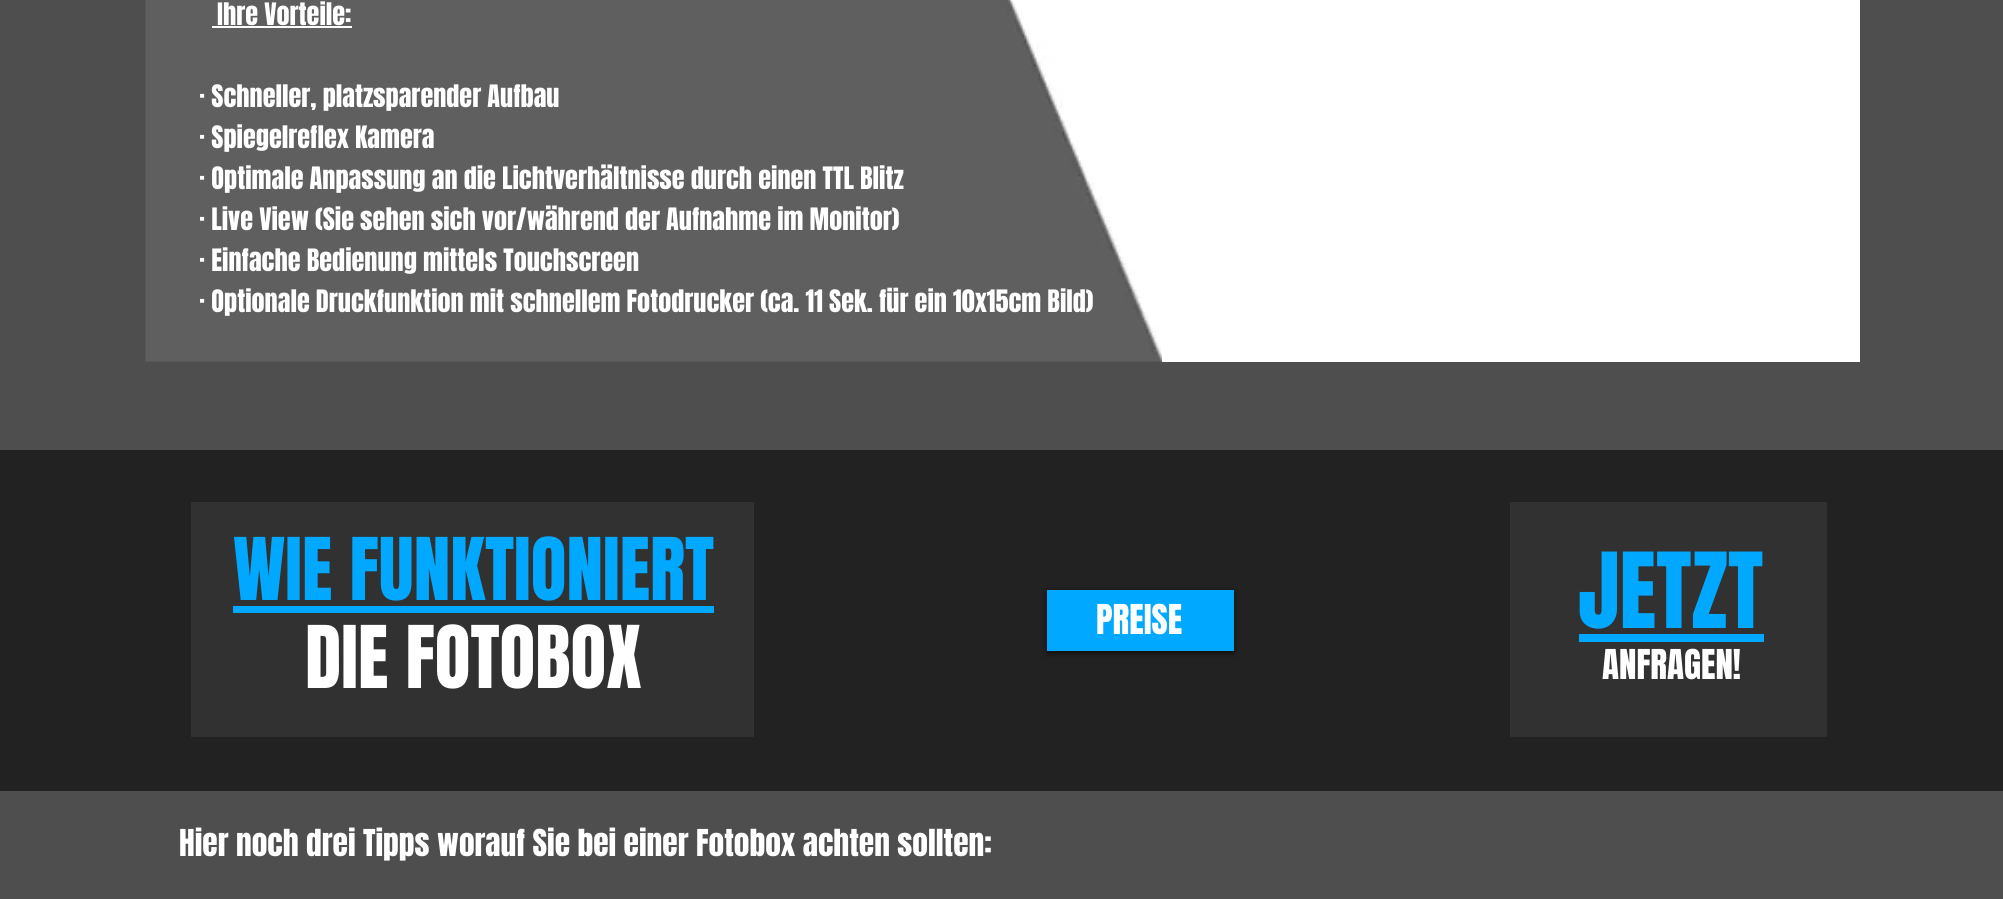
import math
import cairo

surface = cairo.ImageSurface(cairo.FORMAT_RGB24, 2003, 899)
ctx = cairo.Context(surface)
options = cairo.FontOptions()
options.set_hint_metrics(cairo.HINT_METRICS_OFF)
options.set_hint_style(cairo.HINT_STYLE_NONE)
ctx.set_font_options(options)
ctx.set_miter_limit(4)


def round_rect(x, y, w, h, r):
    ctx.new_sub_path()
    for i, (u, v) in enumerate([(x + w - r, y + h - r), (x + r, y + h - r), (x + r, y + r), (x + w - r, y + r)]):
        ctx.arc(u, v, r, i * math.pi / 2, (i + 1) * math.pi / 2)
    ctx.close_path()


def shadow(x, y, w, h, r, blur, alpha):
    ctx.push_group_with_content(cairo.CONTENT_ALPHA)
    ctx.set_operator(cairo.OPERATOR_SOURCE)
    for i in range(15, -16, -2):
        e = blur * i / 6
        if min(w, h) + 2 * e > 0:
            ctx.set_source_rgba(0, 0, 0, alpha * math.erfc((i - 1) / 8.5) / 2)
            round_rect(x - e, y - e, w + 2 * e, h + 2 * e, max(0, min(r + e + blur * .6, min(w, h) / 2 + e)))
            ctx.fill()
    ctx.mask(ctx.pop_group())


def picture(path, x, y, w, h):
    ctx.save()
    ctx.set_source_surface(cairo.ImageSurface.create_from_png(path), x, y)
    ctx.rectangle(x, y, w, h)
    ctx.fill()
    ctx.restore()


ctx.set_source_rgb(0.306, 0.306, 0.306)
ctx.paint()
picture("img1.png", 145, 0, 1017, 362)
ctx.set_source_rgb(1, 1, 1)
ctx.rectangle(1162, 0, 698, 362)
ctx.fill()
ctx.select_font_face("Anton")
ctx.set_font_size(26.25)
ctx.move_to(217, 25)
ctx.show_text("Ihre Vorteile:")
ctx.rectangle(212, 26, 140, 2)
ctx.fill()
ctx.move_to(199, 107)
ctx.show_text("· Schneller, platzsparender Aufbau")
ctx.move_to(199, 148)
ctx.show_text("· Spiegelreflex Kamera")
ctx.move_to(199, 189)
ctx.show_text("· Optimale Anpassung an die Lichtverhältnisse durch einen TTL Blitz")
ctx.move_to(199, 230)
ctx.show_text("· Live View (Sie sehen sich vor/während der Aufnahme im Monitor)")
ctx.move_to(199, 271)
ctx.show_text("· Einfache Bedienung mittels Touchscreen")
ctx.move_to(199, 312)
ctx.show_text("· Optionale Druckfunktion mit schnellem Fotodrucker (ca. 11 Sek. für ein 10x15cm Bild)")
ctx.set_source_rgb(0.133, 0.133, 0.133)
ctx.rectangle(0, 450, 2003, 341)
ctx.fill()
ctx.set_source_rgb(0.192, 0.192, 0.192)
ctx.rectangle(191, 502, 563, 235)
ctx.fill()
ctx.set_font_size(73.5)
ctx.set_source_rgb(0, 0.663, 1)
ctx.move_to(233, 600)
ctx.show_text("WIE FUNKTIONIERT")
ctx.rectangle(233, 606, 481, 7)
ctx.fill()
ctx.set_source_rgb(1, 1, 1)
ctx.move_to(305, 688)
ctx.show_text("DIE FOTOBOX")
ctx.set_source_rgb(0, 0, 0)
shadow(1047, 592, 187, 61, 0, 3.5, 0.6)
ctx.set_source_rgb(0, 0.663, 1)
ctx.rectangle(1047, 590, 187, 61)
ctx.fill()
ctx.set_font_size(35)
ctx.set_source_rgb(1, 1, 1)
ctx.move_to(1096, 634)
ctx.show_text("PREISE")
ctx.set_source_rgb(0.192, 0.192, 0.192)
ctx.rectangle(1510, 502, 317, 235)
ctx.fill()
ctx.set_font_size(89)
ctx.set_source_rgb(0, 0.663, 1)
ctx.move_to(1578, 628)
ctx.show_text("JETZT")
ctx.rectangle(1579, 634, 185, 8)
ctx.fill()
ctx.set_font_size(35)
ctx.set_source_rgb(1, 1, 1)
ctx.move_to(1602, 679)
ctx.show_text("ANFRAGEN!")
ctx.set_font_size(31.5)
ctx.move_to(179, 856)
ctx.show_text("Hier noch drei Tipps worauf Sie bei einer Fotobox achten sollten:")
surface.write_to_png("page.png")
